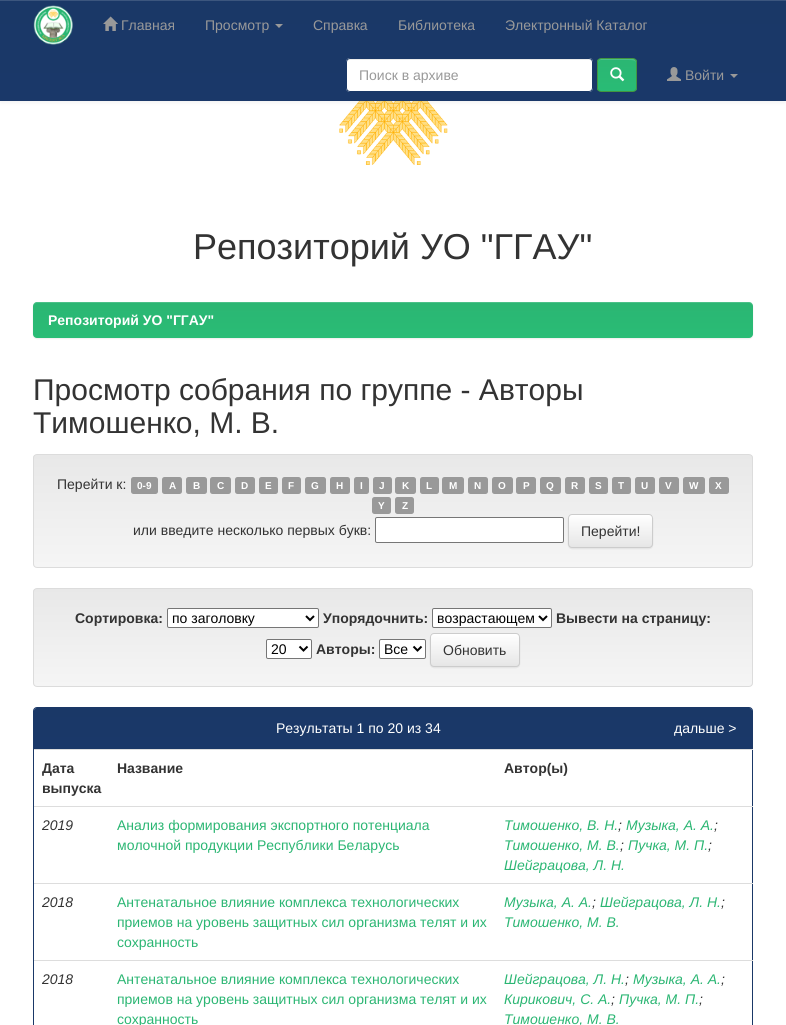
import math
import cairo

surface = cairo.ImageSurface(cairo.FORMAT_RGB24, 786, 1025)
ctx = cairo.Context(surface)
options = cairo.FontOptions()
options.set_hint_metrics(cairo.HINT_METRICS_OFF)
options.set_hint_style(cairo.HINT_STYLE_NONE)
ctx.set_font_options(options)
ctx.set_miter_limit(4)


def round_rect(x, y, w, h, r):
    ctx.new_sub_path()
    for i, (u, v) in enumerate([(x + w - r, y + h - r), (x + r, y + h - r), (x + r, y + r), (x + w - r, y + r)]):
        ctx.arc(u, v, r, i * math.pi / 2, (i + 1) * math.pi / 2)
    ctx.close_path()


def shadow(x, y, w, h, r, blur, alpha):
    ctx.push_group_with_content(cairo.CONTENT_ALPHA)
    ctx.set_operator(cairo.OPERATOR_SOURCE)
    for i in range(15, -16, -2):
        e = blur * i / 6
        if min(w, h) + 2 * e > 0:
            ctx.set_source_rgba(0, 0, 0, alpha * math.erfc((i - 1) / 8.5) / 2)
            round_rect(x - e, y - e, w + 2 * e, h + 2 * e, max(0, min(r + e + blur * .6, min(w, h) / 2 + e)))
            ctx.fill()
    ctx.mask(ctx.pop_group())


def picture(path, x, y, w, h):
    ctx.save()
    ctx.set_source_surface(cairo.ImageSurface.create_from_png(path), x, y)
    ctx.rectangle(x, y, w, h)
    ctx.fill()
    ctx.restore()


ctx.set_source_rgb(1, 1, 1)
ctx.paint()
picture("img5.png", 339, 101, 109, 64)
ctx.set_source_rgb(0, 0, 0)
shadow(0, 1, 786, 101, 0, 2.5, 0.07)
gradient = cairo.LinearGradient(393, 0, 393, 100)
gradient.add_color_stop_rgba(0, 0.102, 0.22, 0.404, 1)
gradient.add_color_stop_rgba(1, 0.102, 0.22, 0.412, 1)
ctx.set_source(gradient)
ctx.rectangle(0, 1, 786, 99)
ctx.fill()
ctx.set_source_rgb(0.235, 0.337, 0.494)
ctx.rectangle(0, 0, 786, 1)
ctx.fill()
ctx.set_source_rgb(0.102, 0.22, 0.412)
ctx.rectangle(0, 100, 786, 1)
ctx.fill()
picture("img1.png", 33, 5, 40, 40)
picture("img2.png", 103, 16, 15, 15)
ctx.select_font_face("Liberation Sans")
ctx.set_font_size(14)
ctx.set_source_rgb(0.6, 0.6, 0.6)
ctx.move_to(121, 30)
ctx.show_text("Главная")
ctx.move_to(205, 30)
ctx.show_text("Просмотр")
ctx.new_path()
ctx.move_to(275, 24)
ctx.line_to(283, 24)
ctx.line_to(279, 28)
ctx.close_path()
ctx.fill()
ctx.move_to(313, 30)
ctx.show_text("Справка")
ctx.move_to(398, 30)
ctx.show_text("Библиотека")
ctx.move_to(505, 30)
ctx.show_text("Электронный Каталог")
ctx.set_source_rgb(1, 1, 1)
round_rect(346, 58, 247, 34, 4)
ctx.fill()
ctx.set_source_rgb(0.925, 0.925, 0.925)
ctx.new_path()
ctx.move_to(350, 60)
ctx.line_to(590, 60)
ctx.line_to(592, 61)
ctx.line_to(592, 63)
ctx.curve_to(592, 61, 591, 59, 589, 59)
ctx.line_to(350, 59)
ctx.curve_to(348, 59, 347, 61, 347, 63)
ctx.curve_to(347, 61, 348, 60, 350, 60)
ctx.close_path()
ctx.fill()
round_rect(346.5, 58.5, 246, 33, 3.5)
ctx.set_source_rgb(0.102, 0.22, 0.404)
ctx.set_line_width(1)
ctx.stroke()
ctx.set_source_rgb(0.6, 0.6, 0.6)
ctx.move_to(359, 80)
ctx.show_text("Поиск в архиве")
ctx.save()
round_rect(597, 58, 40, 34, 4)
ctx.clip()
gradient = cairo.LinearGradient(617, 59, 617, 91)
gradient.add_color_stop_rgba(0, 0.169, 0.714, 0.451, 1)
gradient.add_color_stop_rgba(1, 0.161, 0.737, 0.459, 1)
ctx.set_source(gradient)
ctx.rectangle(597, 59, 40, 32)
ctx.fill()
ctx.restore()
ctx.set_source_rgb(0.294, 0.757, 0.533)
ctx.new_path()
ctx.move_to(601, 60)
ctx.line_to(628, 60)
ctx.curve_to(633.5, 60, 635.5, 60.5, 636, 62.5)
ctx.curve_to(636, 57.5, 631.5, 59, 627.5, 59)
ctx.line_to(606.5, 59)
ctx.curve_to(603, 59, 598, 58, 598, 62.5)
ctx.curve_to(598.5, 61, 599.5, 60, 601, 60)
ctx.close_path()
ctx.fill()
round_rect(597.5, 58.5, 39, 33, 3.5)
ctx.set_source_rgb(0.255, 0.588, 0.255)
ctx.stroke()
picture("img3.png", 610, 67, 15, 15)
picture("img4.png", 667, 67, 14, 14)
ctx.set_source_rgb(0.6, 0.6, 0.6)
ctx.move_to(685, 80)
ctx.show_text("Войти")
ctx.new_path()
ctx.move_to(730, 74)
ctx.line_to(738, 74)
ctx.line_to(734, 78)
ctx.close_path()
ctx.fill()
ctx.set_font_size(36)
ctx.set_source_rgb(0.2, 0.2, 0.2)
ctx.move_to(193, 259)
ctx.show_text("Репозиторий УО \"ГГАУ\"")
ctx.set_source_rgb(0, 0, 0)
shadow(33, 303, 720, 36, 4, 0.5, 0.07)
gradient = cairo.LinearGradient(393, 302, 393, 338)
gradient.add_color_stop_rgba(0, 0.169, 0.714, 0.451, 1)
gradient.add_color_stop_rgba(1, 0.161, 0.737, 0.459, 1)
ctx.set_source(gradient)
round_rect(33, 302, 720, 36, 4)
ctx.fill()
ctx.set_source_rgba(1, 1, 1, 0.15)
ctx.new_path()
ctx.move_to(37, 303)
ctx.line_to(749, 303)
ctx.curve_to(751, 303, 753, 305, 753, 307)
ctx.curve_to(753, 304, 752, 302, 749, 302)
ctx.line_to(37, 302)
ctx.line_to(34, 303)
ctx.line_to(33, 304)
ctx.line_to(33, 307)
ctx.curve_to(33, 305, 35, 303, 37, 303)
ctx.close_path()
ctx.fill()
ctx.select_font_face("Liberation Sans", cairo.FONT_SLANT_NORMAL, cairo.FONT_WEIGHT_BOLD)
ctx.set_font_size(14)
ctx.set_source_rgb(1, 1, 1)
ctx.move_to(48, 325)
ctx.show_text("Репозиторий УО \"ГГАУ\"")
ctx.select_font_face("Liberation Sans")
ctx.set_font_size(30)
ctx.set_source_rgb(0.2, 0.2, 0.2)
ctx.move_to(33, 400)
ctx.show_text("Просмотр собрания по группе - Авторы")
ctx.move_to(33, 433)
ctx.show_text("Тимошенко, М. В.")
ctx.save()
round_rect(33, 454, 720, 114, 4)
ctx.clip()
gradient = cairo.LinearGradient(393, 455, 393, 567)
gradient.add_color_stop_rgba(0, 0.91, 0.91, 0.91, 1)
gradient.add_color_stop_rgba(1, 0.961, 0.961, 0.961, 1)
ctx.set_source(gradient)
ctx.rectangle(33, 455, 720, 112)
ctx.fill()
ctx.restore()
round_rect(33.5, 454.5, 719, 113, 3.5)
ctx.set_source_rgb(0.863, 0.863, 0.863)
ctx.stroke()
ctx.set_font_size(14)
ctx.set_source_rgb(0.2, 0.2, 0.2)
ctx.move_to(57, 489)
ctx.show_text("Перейти к:")
ctx.set_source_rgb(0.6, 0.6, 0.6)
round_rect(131, 477, 27, 17, 2.5)
ctx.fill()
ctx.select_font_face("Liberation Sans", cairo.FONT_SLANT_NORMAL, cairo.FONT_WEIGHT_BOLD)
ctx.set_font_size(10)
ctx.set_source_rgb(1, 1, 1)
ctx.move_to(137, 489)
ctx.show_text("0-9")
ctx.set_source_rgb(0.6, 0.6, 0.6)
round_rect(162, 477, 20, 17, 2.5)
ctx.fill()
ctx.set_source_rgb(1, 1, 1)
ctx.move_to(169, 489)
ctx.show_text("A")
ctx.set_source_rgb(0.6, 0.6, 0.6)
round_rect(186, 477, 21, 17, 2.5)
ctx.fill()
ctx.set_source_rgb(1, 1, 1)
ctx.move_to(193, 489)
ctx.show_text("B")
ctx.set_source_rgb(0.6, 0.6, 0.6)
round_rect(210, 477, 21, 17, 2.5)
ctx.fill()
ctx.set_source_rgb(1, 1, 1)
ctx.move_to(217, 489)
ctx.show_text("C")
ctx.set_source_rgb(0.6, 0.6, 0.6)
round_rect(235, 477, 20, 17, 2.5)
ctx.fill()
ctx.set_source_rgb(1, 1, 1)
ctx.move_to(241, 489)
ctx.show_text("D")
ctx.set_source_rgb(0.6, 0.6, 0.6)
round_rect(259, 477, 19, 17, 2.5)
ctx.fill()
ctx.set_source_rgb(1, 1, 1)
ctx.move_to(265, 489)
ctx.show_text("E")
ctx.set_source_rgb(0.6, 0.6, 0.6)
round_rect(282, 477, 19, 17, 2.5)
ctx.fill()
ctx.set_source_rgb(1, 1, 1)
ctx.move_to(288, 489)
ctx.show_text("F")
ctx.set_source_rgb(0.6, 0.6, 0.6)
round_rect(305, 477, 21, 17, 2.5)
ctx.fill()
ctx.set_source_rgb(1, 1, 1)
ctx.move_to(311, 489)
ctx.show_text("G")
ctx.set_source_rgb(0.6, 0.6, 0.6)
round_rect(330, 477, 20, 17, 2.5)
ctx.fill()
ctx.set_source_rgb(1, 1, 1)
ctx.move_to(336, 489)
ctx.show_text("H")
ctx.set_source_rgb(0.6, 0.6, 0.6)
round_rect(354, 477, 15, 17, 2.5)
ctx.fill()
ctx.set_source_rgb(1, 1, 1)
ctx.move_to(360, 489)
ctx.show_text("I")
ctx.set_source_rgb(0.6, 0.6, 0.6)
round_rect(373, 477, 19, 17, 2.5)
ctx.fill()
ctx.set_source_rgb(1, 1, 1)
ctx.move_to(379, 489)
ctx.show_text("J")
ctx.set_source_rgb(0.6, 0.6, 0.6)
round_rect(395, 477, 21, 17, 2.5)
ctx.fill()
ctx.set_source_rgb(1, 1, 1)
ctx.move_to(402, 489)
ctx.show_text("K")
ctx.set_source_rgb(0.6, 0.6, 0.6)
round_rect(420, 477, 19, 17, 2.5)
ctx.fill()
ctx.set_source_rgb(1, 1, 1)
ctx.move_to(426, 489)
ctx.show_text("L")
ctx.set_source_rgb(0.6, 0.6, 0.6)
round_rect(442, 477, 22, 17, 2.5)
ctx.fill()
ctx.set_source_rgb(1, 1, 1)
ctx.move_to(449, 489)
ctx.show_text("M")
ctx.set_source_rgb(0.6, 0.6, 0.6)
round_rect(468, 477, 20, 17, 2.5)
ctx.fill()
ctx.set_source_rgb(1, 1, 1)
ctx.move_to(474, 489)
ctx.show_text("N")
ctx.set_source_rgb(0.6, 0.6, 0.6)
round_rect(492, 477, 21, 17, 2.5)
ctx.fill()
ctx.set_source_rgb(1, 1, 1)
ctx.move_to(498, 489)
ctx.show_text("O")
ctx.set_source_rgb(0.6, 0.6, 0.6)
round_rect(516, 477, 20, 17, 2.5)
ctx.fill()
ctx.set_source_rgb(1, 1, 1)
ctx.move_to(523, 489)
ctx.show_text("P")
ctx.set_source_rgb(0.6, 0.6, 0.6)
round_rect(540, 477, 21, 17, 2.5)
ctx.fill()
ctx.set_source_rgb(1, 1, 1)
ctx.move_to(546, 489)
ctx.show_text("Q")
ctx.set_source_rgb(0.6, 0.6, 0.6)
round_rect(565, 477, 20, 17, 2.5)
ctx.fill()
ctx.set_source_rgb(1, 1, 1)
ctx.move_to(571, 489)
ctx.show_text("R")
ctx.set_source_rgb(0.6, 0.6, 0.6)
round_rect(589, 477, 19, 17, 2.5)
ctx.fill()
ctx.set_source_rgb(1, 1, 1)
ctx.move_to(595, 489)
ctx.show_text("S")
ctx.set_source_rgb(0.6, 0.6, 0.6)
round_rect(612, 477, 19, 17, 2.5)
ctx.fill()
ctx.set_source_rgb(1, 1, 1)
ctx.move_to(618, 489)
ctx.show_text("T")
ctx.set_source_rgb(0.6, 0.6, 0.6)
round_rect(635, 477, 20, 17, 2.5)
ctx.fill()
ctx.set_source_rgb(1, 1, 1)
ctx.move_to(641, 489)
ctx.show_text("U")
ctx.set_source_rgb(0.6, 0.6, 0.6)
round_rect(659, 477, 20, 17, 2.5)
ctx.fill()
ctx.set_source_rgb(1, 1, 1)
ctx.move_to(665, 489)
ctx.show_text("V")
ctx.set_source_rgb(0.6, 0.6, 0.6)
round_rect(683, 477, 22, 17, 2.5)
ctx.fill()
ctx.set_source_rgb(1, 1, 1)
ctx.move_to(689, 489)
ctx.show_text("W")
ctx.set_source_rgb(0.6, 0.6, 0.6)
round_rect(709, 477, 20, 17, 2.5)
ctx.fill()
ctx.set_source_rgb(1, 1, 1)
ctx.move_to(715, 489)
ctx.show_text("X")
ctx.set_source_rgb(0.6, 0.6, 0.6)
round_rect(372, 497, 19, 17, 2.5)
ctx.fill()
ctx.set_source_rgb(1, 1, 1)
ctx.move_to(378, 509)
ctx.show_text("Y")
ctx.set_source_rgb(0.6, 0.6, 0.6)
round_rect(395, 497, 19, 17, 2.5)
ctx.fill()
ctx.set_source_rgb(1, 1, 1)
ctx.move_to(402, 509)
ctx.show_text("Z")
ctx.select_font_face("Liberation Sans")
ctx.set_font_size(14)
ctx.set_source_rgb(0.2, 0.2, 0.2)
ctx.move_to(133, 535)
ctx.show_text("или введите несколько первых букв:")
ctx.set_source_rgb(1, 1, 1)
round_rect(375.5, 517.5, 188, 25, 1.5)
ctx.fill_preserve()
ctx.set_source_rgb(0.463, 0.463, 0.463)
ctx.stroke()
ctx.set_source_rgb(0, 0, 0)
shadow(568, 515, 85, 34, 4, 0.5, 0.07)
ctx.save()
round_rect(568, 514, 85, 34, 4)
ctx.clip()
gradient = cairo.LinearGradient(611, 515, 611, 547)
gradient.add_color_stop_rgba(0, 1, 1, 1, 1)
gradient.add_color_stop_rgba(1, 0.902, 0.902, 0.902, 1)
ctx.set_source(gradient)
ctx.rectangle(568, 515, 85, 32)
ctx.fill()
ctx.restore()
round_rect(568.5, 514.5, 84, 33, 3.5)
ctx.set_source_rgb(0.8, 0.8, 0.8)
ctx.stroke()
ctx.set_source_rgb(0.2, 0.2, 0.2)
ctx.move_to(581, 536)
ctx.show_text("Перейти!")
ctx.save()
round_rect(33, 588, 720, 99, 4)
ctx.clip()
gradient = cairo.LinearGradient(393, 589, 393, 686)
gradient.add_color_stop_rgba(0, 0.91, 0.91, 0.91, 1)
gradient.add_color_stop_rgba(1, 0.961, 0.961, 0.961, 1)
ctx.set_source(gradient)
ctx.rectangle(33, 589, 720, 97)
ctx.fill()
ctx.restore()
round_rect(33.5, 588.5, 719, 98, 3.5)
ctx.set_source_rgb(0.863, 0.863, 0.863)
ctx.stroke()
ctx.select_font_face("Liberation Sans", cairo.FONT_SLANT_NORMAL, cairo.FONT_WEIGHT_BOLD)
ctx.set_source_rgb(0.2, 0.2, 0.2)
ctx.move_to(75, 623)
ctx.show_text("Сортировка:")
ctx.set_source_rgb(1, 1, 1)
round_rect(167.5, 608.5, 151, 19, 1.5)
ctx.fill_preserve()
ctx.set_source_rgb(0.463, 0.463, 0.463)
ctx.stroke()
ctx.new_path()
ctx.move_to(306, 616)
ctx.line_to(310, 620)
ctx.line_to(314, 616)
ctx.set_source_rgb(0, 0, 0)
ctx.set_line_width(2)
ctx.stroke()
ctx.select_font_face("Liberation Sans")
ctx.move_to(172, 623)
ctx.show_text("по заголовку")
ctx.select_font_face("Liberation Sans", cairo.FONT_SLANT_NORMAL, cairo.FONT_WEIGHT_BOLD)
ctx.set_source_rgb(0.2, 0.2, 0.2)
ctx.move_to(323, 623)
ctx.show_text("Упорядочнить:")
ctx.set_source_rgb(1, 1, 1)
round_rect(432.5, 608.5, 119, 19, 1.5)
ctx.fill_preserve()
ctx.set_source_rgb(0.463, 0.463, 0.463)
ctx.set_line_width(1)
ctx.stroke()
ctx.new_path()
ctx.move_to(539, 616)
ctx.line_to(543, 620)
ctx.line_to(547, 616)
ctx.set_source_rgb(0, 0, 0)
ctx.set_line_width(2)
ctx.stroke()
ctx.select_font_face("Liberation Sans")
ctx.move_to(437, 623)
ctx.show_text("возрастающем")
ctx.select_font_face("Liberation Sans", cairo.FONT_SLANT_NORMAL, cairo.FONT_WEIGHT_BOLD)
ctx.set_source_rgb(0.2, 0.2, 0.2)
ctx.move_to(556, 623)
ctx.show_text("Вывести на страницу:")
ctx.set_source_rgb(1, 1, 1)
round_rect(266.5, 639.5, 45, 19, 1.5)
ctx.fill_preserve()
ctx.set_source_rgb(0.463, 0.463, 0.463)
ctx.set_line_width(1)
ctx.stroke()
ctx.new_path()
ctx.move_to(299.5, 646.5)
ctx.line_to(303.5, 650.5)
ctx.line_to(307.5, 646.5)
ctx.set_source_rgb(0, 0, 0)
ctx.set_line_width(2)
ctx.stroke()
ctx.select_font_face("Liberation Sans")
ctx.move_to(271, 654)
ctx.show_text("20")
ctx.select_font_face("Liberation Sans", cairo.FONT_SLANT_NORMAL, cairo.FONT_WEIGHT_BOLD)
ctx.set_source_rgb(0.2, 0.2, 0.2)
ctx.move_to(316, 654)
ctx.show_text("Авторы:")
ctx.set_source_rgb(1, 1, 1)
round_rect(379.5, 639.5, 46, 19, 1.5)
ctx.fill_preserve()
ctx.set_source_rgb(0.463, 0.463, 0.463)
ctx.set_line_width(1)
ctx.stroke()
ctx.new_path()
ctx.move_to(413.5, 646.5)
ctx.line_to(417.5, 650.5)
ctx.line_to(421.5, 646.5)
ctx.set_source_rgb(0, 0, 0)
ctx.set_line_width(2)
ctx.stroke()
ctx.select_font_face("Liberation Sans")
ctx.move_to(384, 654)
ctx.show_text("Все")
ctx.set_source_rgb(0, 0, 0)
shadow(430, 634, 90, 34, 4, 0.5, 0.07)
ctx.save()
round_rect(430, 633, 90, 34, 4)
ctx.clip()
gradient = cairo.LinearGradient(475, 634, 475, 666)
gradient.add_color_stop_rgba(0, 1, 1, 1, 1)
gradient.add_color_stop_rgba(1, 0.902, 0.902, 0.902, 1)
ctx.set_source(gradient)
ctx.rectangle(430, 634, 90, 32)
ctx.fill()
ctx.restore()
round_rect(430.5, 633.5, 89, 33, 3.5)
ctx.set_source_rgb(0.8, 0.8, 0.8)
ctx.set_line_width(1)
ctx.stroke()
ctx.set_source_rgb(0.2, 0.2, 0.2)
ctx.move_to(443, 655)
ctx.show_text("Обновить")
round_rect(33.5, 707.5, 719, 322, 3.5)
ctx.set_source_rgb(0.102, 0.22, 0.404)
ctx.stroke()
ctx.new_path()
ctx.move_to(37, 708)
ctx.line_to(749, 708)
ctx.curve_to(750.5, 708, 752, 709.5, 752, 711)
ctx.line_to(752, 749)
ctx.line_to(34, 749)
ctx.line_to(34, 711)
ctx.curve_to(34, 709.5, 35.5, 708, 37, 708)
ctx.close_path()
ctx.fill()
gradient = cairo.LinearGradient(393, 708, 393, 748)
gradient.add_color_stop_rgba(0, 0.102, 0.22, 0.404, 1)
gradient.add_color_stop_rgba(1, 0.102, 0.22, 0.412, 1)
ctx.set_source(gradient)
ctx.new_path()
ctx.move_to(37, 708)
ctx.line_to(749, 708)
ctx.curve_to(750.5, 708, 752, 709.5, 752, 711)
ctx.line_to(752, 748)
ctx.line_to(34, 748)
ctx.line_to(34, 711)
ctx.curve_to(34, 709.5, 35.5, 708, 37, 708)
ctx.close_path()
ctx.fill()
ctx.set_source_rgb(1, 1, 1)
ctx.move_to(276, 733)
ctx.show_text("Результаты 1 по 20 из 34")
ctx.move_to(674, 733)
ctx.show_text("дальше >")
ctx.select_font_face("Liberation Sans", cairo.FONT_SLANT_NORMAL, cairo.FONT_WEIGHT_BOLD)
ctx.set_source_rgb(0.2, 0.2, 0.2)
ctx.move_to(42, 773)
ctx.show_text("Дата")
ctx.move_to(42, 793)
ctx.show_text("выпуска")
ctx.move_to(117, 773)
ctx.show_text("Название")
ctx.set_source_rgb(0.867, 0.867, 0.867)
ctx.rectangle(34, 749, 719, 1)
ctx.fill()
ctx.set_source_rgb(0.2, 0.2, 0.2)
ctx.move_to(504, 773)
ctx.show_text("Автор(ы)")
ctx.select_font_face("Liberation Sans", cairo.FONT_SLANT_ITALIC)
ctx.move_to(42, 830)
ctx.show_text("2019")
ctx.select_font_face("Liberation Sans")
ctx.set_source_rgb(0.169, 0.714, 0.451)
ctx.move_to(117, 830)
ctx.show_text("Анализ формирования экспортного потенциала")
ctx.move_to(117, 850)
ctx.show_text("молочной продукции Республики Беларусь")
ctx.set_source_rgb(0.867, 0.867, 0.867)
ctx.rectangle(34, 806, 719, 1)
ctx.fill()
ctx.select_font_face("Liberation Sans", cairo.FONT_SLANT_ITALIC)
ctx.set_source_rgb(0.169, 0.714, 0.451)
ctx.move_to(504, 830)
ctx.show_text("Тимошенко, В. Н.")
ctx.set_source_rgb(0.2, 0.2, 0.2)
ctx.move_to(618, 830)
ctx.show_text(";")
ctx.set_source_rgb(0.169, 0.714, 0.451)
ctx.move_to(626, 830)
ctx.show_text("Музыка, А. А.")
ctx.set_source_rgb(0.2, 0.2, 0.2)
ctx.move_to(714, 830)
ctx.show_text(";")
ctx.set_source_rgb(0.169, 0.714, 0.451)
ctx.move_to(504, 850)
ctx.show_text("Тимошенко, М. В.")
ctx.set_source_rgb(0.2, 0.2, 0.2)
ctx.move_to(620, 850)
ctx.show_text(";")
ctx.set_source_rgb(0.169, 0.714, 0.451)
ctx.move_to(628, 850)
ctx.show_text("Пучка, М. П.")
ctx.set_source_rgb(0.2, 0.2, 0.2)
ctx.move_to(708, 850)
ctx.show_text(";")
ctx.set_source_rgb(0.169, 0.714, 0.451)
ctx.move_to(504, 870)
ctx.show_text("Шейграцова, Л. Н.")
ctx.set_source_rgb(0.2, 0.2, 0.2)
ctx.move_to(42, 907)
ctx.show_text("2018")
ctx.select_font_face("Liberation Sans")
ctx.set_source_rgb(0.169, 0.714, 0.451)
ctx.move_to(117, 907)
ctx.show_text("Антенатальное влияние комплекса технологических")
ctx.move_to(117, 927)
ctx.show_text("приемов на уровень защитных сил организма телят и их")
ctx.move_to(117, 947)
ctx.show_text("сохранность")
ctx.set_source_rgb(0.867, 0.867, 0.867)
ctx.rectangle(34, 883, 719, 1)
ctx.fill()
ctx.select_font_face("Liberation Sans", cairo.FONT_SLANT_ITALIC)
ctx.set_source_rgb(0.169, 0.714, 0.451)
ctx.move_to(504, 907)
ctx.show_text("Музыка, А. А.")
ctx.set_source_rgb(0.2, 0.2, 0.2)
ctx.move_to(592, 907)
ctx.show_text(";")
ctx.set_source_rgb(0.169, 0.714, 0.451)
ctx.move_to(600, 907)
ctx.show_text("Шейграцова, Л. Н.")
ctx.set_source_rgb(0.2, 0.2, 0.2)
ctx.move_to(721, 907)
ctx.show_text(";")
ctx.set_source_rgb(0.169, 0.714, 0.451)
ctx.move_to(504, 927)
ctx.show_text("Тимошенко, М. В.")
ctx.set_source_rgb(0.2, 0.2, 0.2)
ctx.move_to(42, 984)
ctx.show_text("2018")
ctx.select_font_face("Liberation Sans")
ctx.set_source_rgb(0.169, 0.714, 0.451)
ctx.move_to(117, 984)
ctx.show_text("Антенатальное влияние комплекса технологических")
ctx.move_to(117, 1004)
ctx.show_text("приемов на уровень защитных сил организма телят и их")
ctx.move_to(117, 1024)
ctx.show_text("сохранность")
ctx.set_source_rgb(0.867, 0.867, 0.867)
ctx.rectangle(34, 960, 719, 1)
ctx.fill()
ctx.select_font_face("Liberation Sans", cairo.FONT_SLANT_ITALIC)
ctx.set_source_rgb(0.169, 0.714, 0.451)
ctx.move_to(504, 984)
ctx.show_text("Шейграцова, Л. Н.")
ctx.set_source_rgb(0.2, 0.2, 0.2)
ctx.move_to(625, 984)
ctx.show_text(";")
ctx.set_source_rgb(0.169, 0.714, 0.451)
ctx.move_to(633, 984)
ctx.show_text("Музыка, А. А.")
ctx.set_source_rgb(0.2, 0.2, 0.2)
ctx.move_to(721, 984)
ctx.show_text(";")
ctx.set_source_rgb(0.169, 0.714, 0.451)
ctx.move_to(504, 1004)
ctx.show_text("Кирикович, С. А.")
ctx.set_source_rgb(0.2, 0.2, 0.2)
ctx.move_to(611, 1004)
ctx.show_text(";")
ctx.set_source_rgb(0.169, 0.714, 0.451)
ctx.move_to(619, 1004)
ctx.show_text("Пучка, М. П.")
ctx.set_source_rgb(0.2, 0.2, 0.2)
ctx.move_to(699, 1004)
ctx.show_text(";")
ctx.set_source_rgb(0.169, 0.714, 0.451)
ctx.move_to(504, 1024)
ctx.show_text("Тимошенко, М. В.")
surface.write_to_png("page.png")
